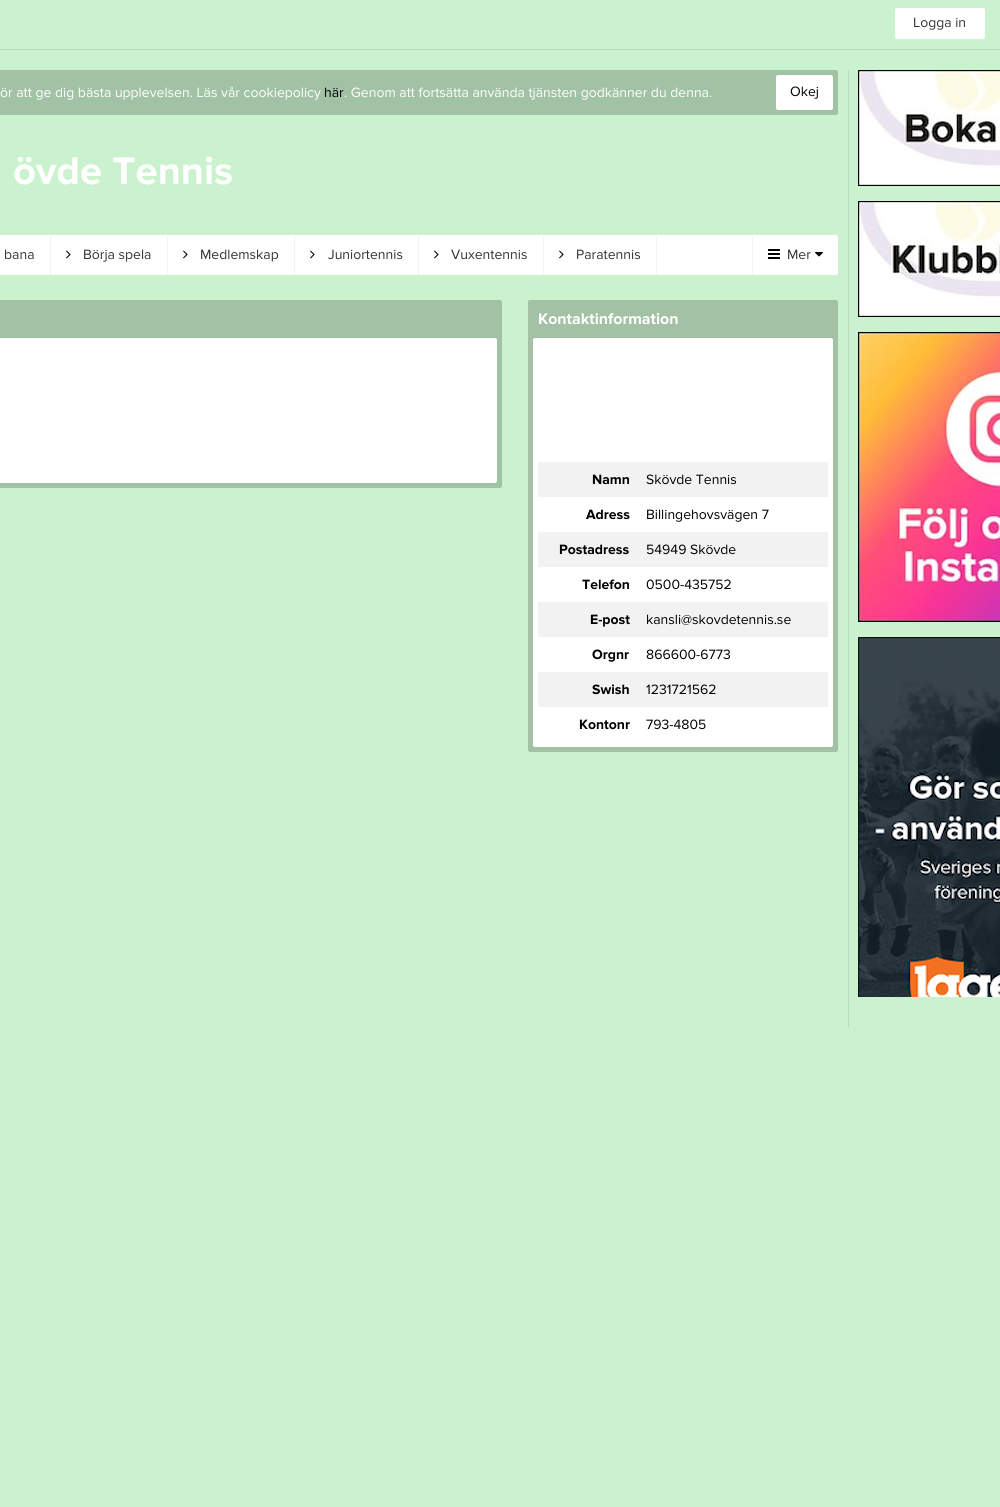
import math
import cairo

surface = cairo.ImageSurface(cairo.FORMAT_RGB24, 1000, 1507)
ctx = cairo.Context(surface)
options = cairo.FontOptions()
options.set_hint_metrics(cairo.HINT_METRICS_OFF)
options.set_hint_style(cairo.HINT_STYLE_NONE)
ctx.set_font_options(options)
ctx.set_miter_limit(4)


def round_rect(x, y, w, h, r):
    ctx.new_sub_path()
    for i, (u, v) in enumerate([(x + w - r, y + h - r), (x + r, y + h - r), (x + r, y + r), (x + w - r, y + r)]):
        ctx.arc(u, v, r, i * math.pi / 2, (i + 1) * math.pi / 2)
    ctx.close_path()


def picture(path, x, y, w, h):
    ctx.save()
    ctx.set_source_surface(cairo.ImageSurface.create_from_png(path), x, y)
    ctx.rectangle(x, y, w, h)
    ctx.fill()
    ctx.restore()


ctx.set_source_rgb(0.796, 0.949, 0.808)
ctx.paint()
ctx.set_source_rgb(0.718, 0.855, 0.725)
ctx.rectangle(0, 49, 1000, 1)
ctx.fill()
ctx.set_source_rgb(1, 1, 1)
round_rect(895, 8, 90, 31, 2)
ctx.fill()
ctx.select_font_face("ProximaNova")
ctx.set_font_size(14)
ctx.set_source_rgb(0.2, 0.2, 0.2)
ctx.move_to(913, 27)
ctx.show_text("Logga in")
ctx.set_source_rgb(0.635, 0.761, 0.647)
round_rect(-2, 70, 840, 45, 2)
ctx.fill()
ctx.set_source_rgb(1, 1, 1)
ctx.move_to(0, 97)
ctx.show_text("ör att ge dig bästa upplevelsen. Läs vår cookiepolicy")
ctx.set_source_rgb(0, 0, 0)
ctx.move_to(324, 97)
ctx.show_text("här")
ctx.set_source_rgb(1, 1, 1)
ctx.move_to(344, 97)
ctx.show_text(". Genom att fortsätta använda tjänsten godkänner du denna.")
round_rect(776, 75, 57, 35, 2)
ctx.fill()
ctx.set_source_rgb(0, 0, 0)
ctx.move_to(790, 96)
ctx.show_text("Okej")
ctx.select_font_face("ProximaNova", cairo.FONT_SLANT_NORMAL, cairo.FONT_WEIGHT_BOLD)
ctx.set_font_size(40)
ctx.set_source_rgb(1, 1, 1)
ctx.move_to(13, 184)
ctx.show_text("övde Tennis")
round_rect(-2, 235, 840, 40, 2)
ctx.fill()
ctx.set_source_rgb(0.953, 0.953, 0.953)
ctx.rectangle(50, 235, 1, 40)
ctx.fill()
ctx.select_font_face("ProximaNova")
ctx.set_font_size(14)
ctx.set_source_rgb(0.2, 0.2, 0.2)
ctx.move_to(4, 259)
ctx.show_text("bana")
ctx.set_source_rgb(0.953, 0.953, 0.953)
ctx.rectangle(167, 235, 1, 40)
ctx.fill()
picture("img1.png", 66, 250, 5, 9)
ctx.set_source_rgb(0.2, 0.2, 0.2)
ctx.move_to(83, 259)
ctx.show_text("Börja spela")
ctx.set_source_rgb(0.953, 0.953, 0.953)
ctx.rectangle(294, 235, 1, 40)
ctx.fill()
picture("img1.png", 183, 250, 5, 9)
ctx.set_source_rgb(0.2, 0.2, 0.2)
ctx.move_to(200, 259)
ctx.show_text("Medlemskap")
ctx.set_source_rgb(0.953, 0.953, 0.953)
ctx.rectangle(418, 235, 1, 40)
ctx.fill()
picture("img1.png", 310, 250, 5, 9)
ctx.set_source_rgb(0.2, 0.2, 0.2)
ctx.move_to(328, 259)
ctx.show_text("Juniortennis")
ctx.set_source_rgb(0.953, 0.953, 0.953)
ctx.rectangle(543, 235, 1, 40)
ctx.fill()
picture("img1.png", 434, 250, 5, 9)
ctx.set_source_rgb(0.2, 0.2, 0.2)
ctx.move_to(451, 259)
ctx.show_text("Vuxentennis")
ctx.set_source_rgb(0.953, 0.953, 0.953)
ctx.rectangle(656, 235, 1, 40)
ctx.fill()
picture("img1.png", 559, 250, 5, 9)
ctx.set_source_rgb(0.2, 0.2, 0.2)
ctx.move_to(576, 259)
ctx.show_text("Paratennis")
ctx.set_source_rgb(0.953, 0.953, 0.953)
ctx.rectangle(752, 235, 1, 40)
ctx.fill()
picture("img2.png", 768, 249, 12, 10)
ctx.set_source_rgb(0.2, 0.2, 0.2)
ctx.move_to(787, 259)
ctx.show_text("Mer")
picture("img3.png", 815, 252, 8, 5)
ctx.set_source_rgb(0.635, 0.761, 0.647)
round_rect(-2, 300, 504, 188, 2)
ctx.fill()
ctx.set_source_rgb(1, 1, 1)
round_rect(-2, 338, 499, 145, 2)
ctx.fill()
ctx.set_source_rgb(0.639, 0.761, 0.647)
round_rect(528, 300, 310, 452, 2)
ctx.fill()
ctx.select_font_face("ProximaNova", cairo.FONT_SLANT_NORMAL, cairo.FONT_WEIGHT_BOLD)
ctx.set_font_size(16)
ctx.set_source_rgb(1, 1, 1)
ctx.move_to(538, 324)
ctx.show_text("Kontaktinformation")
round_rect(533, 338, 300, 409, 2)
ctx.fill()
ctx.set_source_rgb(0.949, 0.949, 0.949)
ctx.rectangle(538, 462, 290, 35)
ctx.fill()
ctx.set_font_size(14)
ctx.set_source_rgb(0, 0, 0)
ctx.move_to(592, 484)
ctx.show_text("Namn")
ctx.select_font_face("ProximaNova")
ctx.move_to(646, 484)
ctx.show_text("Skövde Tennis")
ctx.select_font_face("ProximaNova", cairo.FONT_SLANT_NORMAL, cairo.FONT_WEIGHT_BOLD)
ctx.move_to(586, 519)
ctx.show_text("Adress")
ctx.select_font_face("ProximaNova")
ctx.move_to(646, 519)
ctx.show_text("Billingehovsvägen 7")
ctx.set_source_rgb(0.949, 0.949, 0.949)
ctx.rectangle(538, 532, 290, 35)
ctx.fill()
ctx.select_font_face("ProximaNova", cairo.FONT_SLANT_NORMAL, cairo.FONT_WEIGHT_BOLD)
ctx.set_source_rgb(0, 0, 0)
ctx.move_to(559, 554)
ctx.show_text("Postadress")
ctx.select_font_face("ProximaNova")
ctx.move_to(646, 554)
ctx.show_text("54949 Skövde")
ctx.select_font_face("ProximaNova", cairo.FONT_SLANT_NORMAL, cairo.FONT_WEIGHT_BOLD)
ctx.move_to(582, 589)
ctx.show_text("Telefon")
ctx.select_font_face("ProximaNova")
ctx.move_to(646, 589)
ctx.show_text("0500-435752")
ctx.set_source_rgb(0.949, 0.949, 0.949)
ctx.rectangle(538, 602, 290, 35)
ctx.fill()
ctx.select_font_face("ProximaNova", cairo.FONT_SLANT_NORMAL, cairo.FONT_WEIGHT_BOLD)
ctx.set_source_rgb(0, 0, 0)
ctx.move_to(590, 624)
ctx.show_text("E-post")
ctx.select_font_face("ProximaNova")
ctx.move_to(646, 624)
ctx.show_text("kansli@skovdetennis.se")
ctx.select_font_face("ProximaNova", cairo.FONT_SLANT_NORMAL, cairo.FONT_WEIGHT_BOLD)
ctx.move_to(592, 659)
ctx.show_text("Orgnr")
ctx.select_font_face("ProximaNova")
ctx.move_to(646, 659)
ctx.show_text("866600-6773")
ctx.set_source_rgb(0.949, 0.949, 0.949)
ctx.rectangle(538, 672, 290, 35)
ctx.fill()
ctx.select_font_face("ProximaNova", cairo.FONT_SLANT_NORMAL, cairo.FONT_WEIGHT_BOLD)
ctx.set_source_rgb(0, 0, 0)
ctx.move_to(592, 694)
ctx.show_text("Swish")
ctx.select_font_face("ProximaNova")
ctx.move_to(646, 694)
ctx.show_text("1231721562")
ctx.select_font_face("ProximaNova", cairo.FONT_SLANT_NORMAL, cairo.FONT_WEIGHT_BOLD)
ctx.move_to(579, 729)
ctx.show_text("Kontonr")
ctx.select_font_face("ProximaNova")
ctx.move_to(646, 729)
ctx.show_text("793-4805")
ctx.set_source_rgb(0.718, 0.855, 0.725)
ctx.rectangle(848, 70, 1, 957)
ctx.fill()
picture("img4.png", 858, 70, 142, 116)
picture("img5.png", 858, 201, 142, 116)
picture("img6.png", 858, 332, 142, 290)
picture("img7.png", 858, 637, 142, 360)
surface.write_to_png("page.png")
